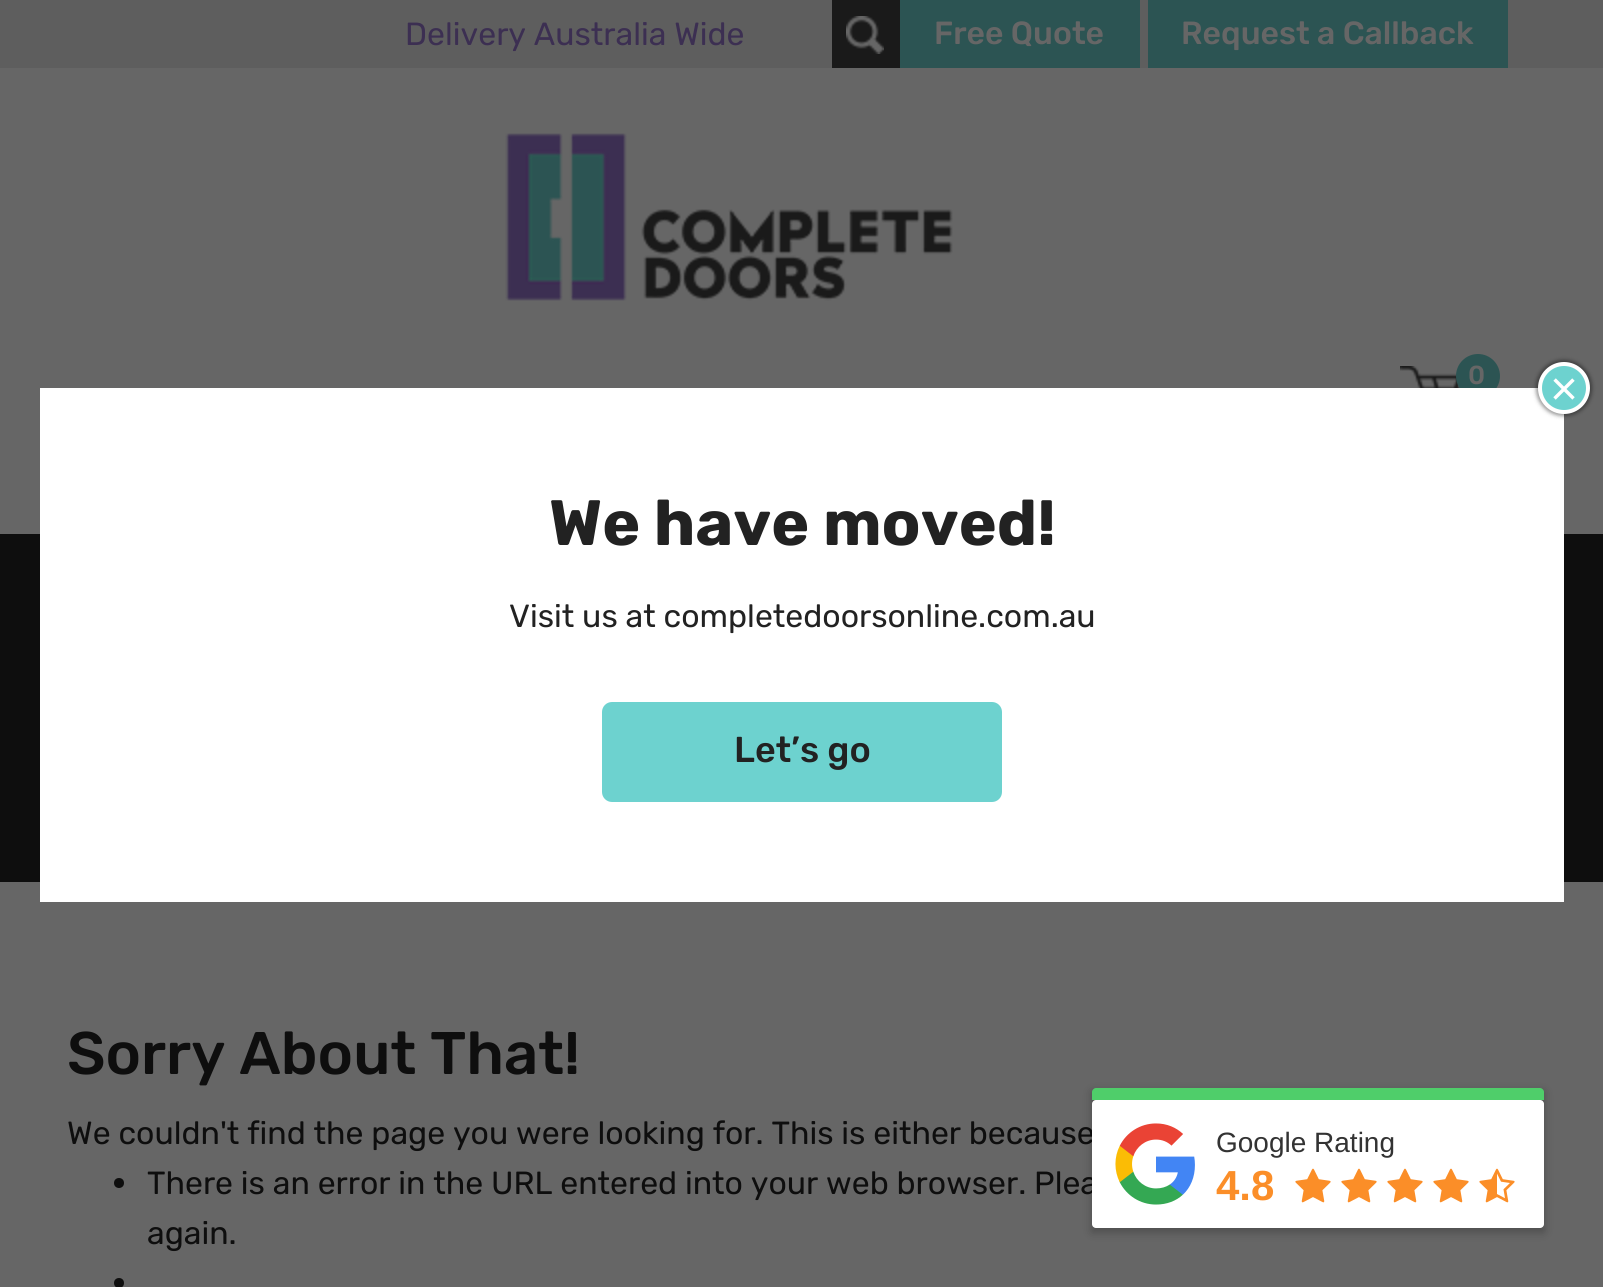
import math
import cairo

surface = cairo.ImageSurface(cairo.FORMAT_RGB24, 1603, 1287)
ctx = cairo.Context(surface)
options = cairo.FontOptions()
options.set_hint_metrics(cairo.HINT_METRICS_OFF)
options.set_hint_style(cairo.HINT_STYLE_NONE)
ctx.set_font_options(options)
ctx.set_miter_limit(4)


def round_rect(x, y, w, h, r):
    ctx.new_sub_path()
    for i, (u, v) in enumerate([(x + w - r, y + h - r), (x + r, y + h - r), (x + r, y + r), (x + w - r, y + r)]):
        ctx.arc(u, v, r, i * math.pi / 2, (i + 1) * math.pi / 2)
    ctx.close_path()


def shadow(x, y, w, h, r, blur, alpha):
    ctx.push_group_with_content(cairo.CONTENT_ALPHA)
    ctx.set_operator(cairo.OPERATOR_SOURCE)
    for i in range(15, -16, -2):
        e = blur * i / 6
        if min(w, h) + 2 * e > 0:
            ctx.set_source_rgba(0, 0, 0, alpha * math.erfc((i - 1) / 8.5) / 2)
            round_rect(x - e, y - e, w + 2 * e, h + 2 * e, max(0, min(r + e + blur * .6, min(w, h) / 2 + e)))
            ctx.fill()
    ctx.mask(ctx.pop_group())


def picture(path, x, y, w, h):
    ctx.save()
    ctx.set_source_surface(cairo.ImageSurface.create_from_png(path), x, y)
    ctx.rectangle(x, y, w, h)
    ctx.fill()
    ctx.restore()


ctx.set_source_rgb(0.4, 0.4, 0.4)
ctx.paint()
ctx.set_source_rgb(0.369, 0.369, 0.369)
ctx.rectangle(0, 0, 1603, 68)
ctx.fill()
ctx.select_font_face("Rubik")
ctx.set_font_size(32)
ctx.set_source_rgb(0.235, 0.184, 0.322)
ctx.move_to(405, 45)
ctx.show_text("Delivery Australia Wide")
ctx.set_source_rgb(0.102, 0.102, 0.102)
ctx.rectangle(832, 0, 68, 68)
ctx.fill()
picture("img1.png", 846, 16, 38, 38)
ctx.set_source_rgb(0.173, 0.329, 0.325)
ctx.rectangle(900, 0, 240, 68)
ctx.fill()
ctx.select_font_face("Rubik Medium")
ctx.set_source_rgb(0.4, 0.4, 0.4)
ctx.move_to(934, 44)
ctx.show_text("Free Quote")
ctx.set_source_rgb(0.173, 0.329, 0.325)
ctx.rectangle(1148, 0, 360, 68)
ctx.fill()
ctx.set_source_rgb(0.4, 0.4, 0.4)
ctx.move_to(1181, 44)
ctx.show_text("Request a Callback")
picture("img2.png", 505, 133, 448, 168)
picture("img3.png", 1400, 366, 60, 22)
ctx.set_source_rgb(0.173, 0.329, 0.325)
ctx.arc(1478, 376, 22, 0, 2 * math.pi)
ctx.fill()
ctx.set_font_size(26)
ctx.set_source_rgb(0.4, 0.4, 0.4)
ctx.move_to(1468, 384)
ctx.show_text("0")
ctx.set_source_rgb(0.055, 0.055, 0.055)
ctx.rectangle(0, 534, 1603, 348)
ctx.fill()
ctx.set_source_rgb(1, 1, 1)
ctx.rectangle(40, 388, 1524, 514)
ctx.fill()
ctx.set_source_rgb(0.008, 0.008, 0.008)
shadow(1536, 360, 56, 56, 28, 2, 0.41)
ctx.set_source_rgb(0.427, 0.824, 0.812)
ctx.arc(1564, 388, 24, 0, 2 * math.pi)
ctx.fill_preserve()
ctx.set_source_rgb(1, 1, 1)
ctx.set_line_width(4)
ctx.stroke()
ctx.select_font_face("Liberation Sans")
ctx.set_font_size(48)
ctx.move_to(1550, 405)
ctx.show_text("×")
ctx.select_font_face("Rubik", cairo.FONT_SLANT_NORMAL, cairo.FONT_WEIGHT_BOLD)
ctx.set_font_size(64)
ctx.set_source_rgb(0.133, 0.133, 0.133)
ctx.move_to(549, 545)
ctx.show_text("We have moved!")
ctx.select_font_face("Rubik")
ctx.set_font_size(32)
ctx.move_to(509, 627)
ctx.show_text("Visit us at completedoorsonline.com.au")
ctx.set_source_rgb(0.427, 0.824, 0.812)
round_rect(602, 702, 400, 100, 10)
ctx.fill()
ctx.select_font_face("Rubik Medium")
ctx.set_font_size(36)
ctx.set_source_rgb(0.133, 0.133, 0.133)
ctx.move_to(734, 762)
ctx.show_text("Let’s go")
ctx.set_font_size(60)
ctx.set_source_rgb(0.055, 0.055, 0.055)
ctx.move_to(67, 1074)
ctx.show_text("Sorry About That!")
ctx.select_font_face("Rubik")
ctx.set_font_size(32)
ctx.move_to(67, 1144)
ctx.show_text("We couldn't find the page you were looking for. This is either because")
ctx.new_path()
ctx.arc(119, 1183, 5, 0, 2 * math.pi)
ctx.fill()
ctx.move_to(147, 1194)
ctx.show_text("There is an error in the URL entered into your web browser. Plea")
ctx.move_to(147, 1244)
ctx.show_text("again.")
ctx.new_path()
ctx.arc(119, 1283, 5, 0, 2 * math.pi)
ctx.fill()
ctx.set_source_rgb(0, 0, 0)
shadow(1092, 1092, 452, 140, 0, 5, 0.26)
ctx.set_source_rgb(0.31, 0.808, 0.416)
ctx.new_path()
ctx.move_to(1096, 1088)
ctx.line_to(1540, 1088)
ctx.curve_to(1542, 1088, 1544, 1090, 1544, 1092)
ctx.line_to(1544, 1100)
ctx.line_to(1092, 1100)
ctx.line_to(1092, 1092)
ctx.curve_to(1092, 1090, 1094, 1088, 1096, 1088)
ctx.close_path()
ctx.fill()
ctx.set_source_rgb(1, 1, 1)
round_rect(1092, 1100, 452, 128, 4)
ctx.fill()
picture("img4.png", 1115, 1123, 80, 82)
ctx.select_font_face("Liberation Sans")
ctx.set_font_size(28)
ctx.set_source_rgb(0.2, 0.2, 0.2)
ctx.move_to(1216, 1152)
ctx.show_text("Google Rating")
ctx.select_font_face("Liberation Sans", cairo.FONT_SLANT_NORMAL, cairo.FONT_WEIGHT_BOLD)
ctx.set_font_size(42)
ctx.set_source_rgb(0.984, 0.557, 0.157)
ctx.move_to(1216, 1200)
ctx.show_text("4.8")
picture("img5.png", 1295, 1168, 36, 35)
picture("img5.png", 1341, 1168, 36, 35)
picture("img5.png", 1387, 1168, 36, 35)
picture("img5.png", 1433, 1168, 36, 35)
picture("img6.png", 1479, 1168, 36, 35)
surface.write_to_png("page.png")
